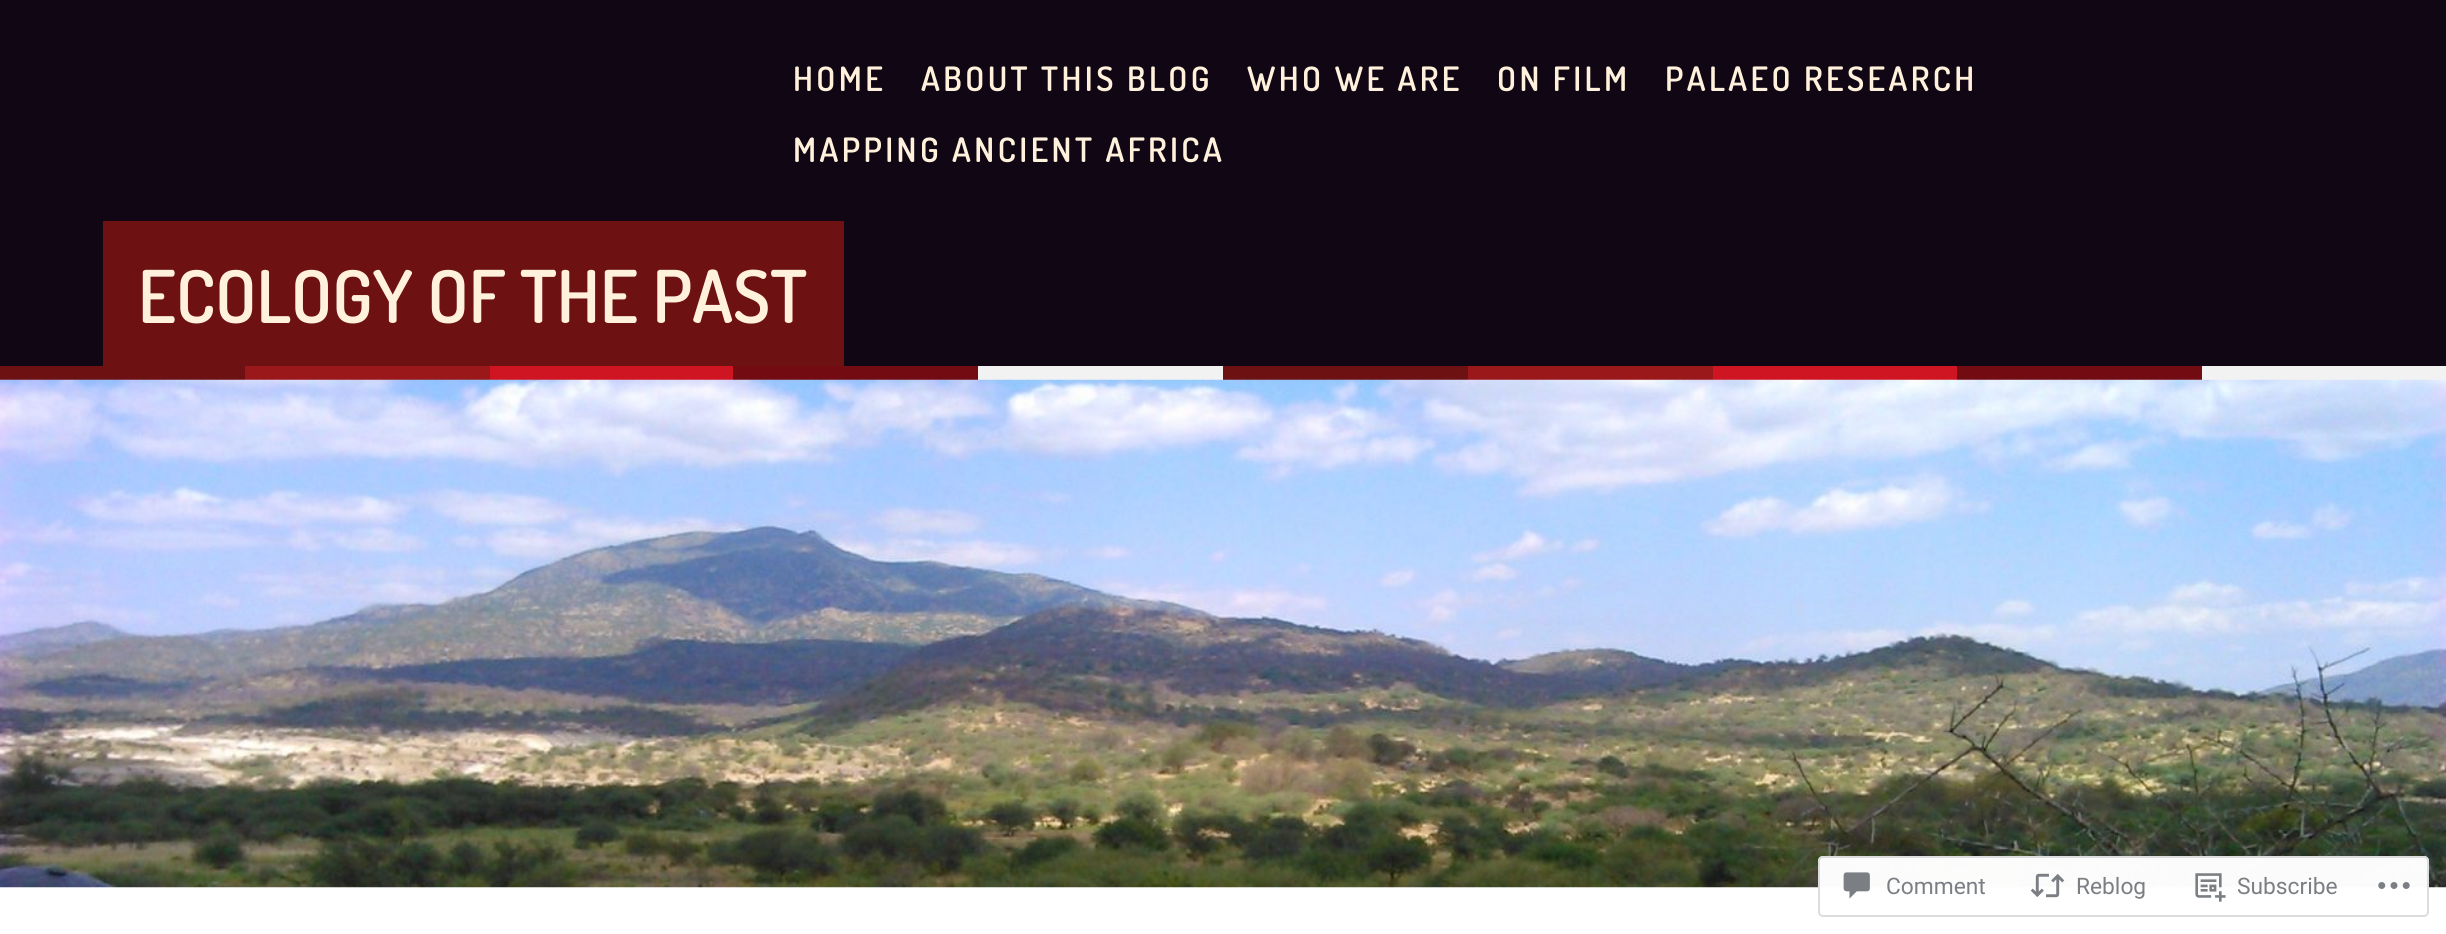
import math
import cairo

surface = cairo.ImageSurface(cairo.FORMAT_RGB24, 2446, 934)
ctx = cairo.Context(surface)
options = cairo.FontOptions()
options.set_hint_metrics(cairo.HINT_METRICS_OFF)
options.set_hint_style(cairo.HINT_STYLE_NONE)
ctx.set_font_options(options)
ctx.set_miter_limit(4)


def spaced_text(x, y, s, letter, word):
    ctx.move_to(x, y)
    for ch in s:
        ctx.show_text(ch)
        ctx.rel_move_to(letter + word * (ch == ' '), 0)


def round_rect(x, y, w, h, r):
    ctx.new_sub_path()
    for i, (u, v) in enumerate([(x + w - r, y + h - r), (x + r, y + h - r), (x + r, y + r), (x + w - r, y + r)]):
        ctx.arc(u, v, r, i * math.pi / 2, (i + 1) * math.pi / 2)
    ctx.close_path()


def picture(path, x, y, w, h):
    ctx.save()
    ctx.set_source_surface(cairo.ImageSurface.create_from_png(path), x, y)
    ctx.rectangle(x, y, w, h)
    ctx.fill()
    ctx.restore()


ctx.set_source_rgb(1, 1, 1)
ctx.paint()
ctx.set_source_rgb(0.067, 0.024, 0.078)
ctx.rectangle(0, 0, 2446, 366)
ctx.fill()
ctx.select_font_face("Dosis SemiBold")
ctx.set_font_size(33.6)
ctx.set_source_rgb(1, 0.945, 0.859)
spaced_text(793, 91, "HOME", 3.4, 0)
spaced_text(921, 91, "ABOUT THIS BLOG", 3.4, 0)
spaced_text(1247, 91, "WHO WE ARE", 3.4, 0)
spaced_text(1497, 91, "ON FILM", 3.4, 0)
spaced_text(1665, 91, "PALAEO RESEARCH", 3.4, 0)
spaced_text(793, 162, "MAPPING ANCIENT AFRICA", 3.4, 0)
ctx.set_source_rgb(0.431, 0.067, 0.075)
ctx.rectangle(103, 221, 741, 145)
ctx.fill()
ctx.set_font_size(72.75)
ctx.set_source_rgb(1, 0.945, 0.859)
ctx.move_to(138, 323)
ctx.show_text("ECOLOGY OF THE PAST")
ctx.set_source_rgb(0.431, 0.067, 0.075)
ctx.rectangle(0, 366, 245, 14)
ctx.fill()
ctx.set_source_rgb(0.604, 0.094, 0.102)
ctx.rectangle(245, 366, 245, 14)
ctx.fill()
ctx.set_source_rgb(0.812, 0.082, 0.133)
ctx.rectangle(490, 366, 243, 14)
ctx.fill()
ctx.set_source_rgb(0.451, 0.047, 0.071)
ctx.rectangle(733, 366, 245, 14)
ctx.fill()
ctx.set_source_rgb(0.949, 0.949, 0.949)
ctx.rectangle(978, 366, 245, 14)
ctx.fill()
ctx.set_source_rgb(0.431, 0.067, 0.075)
ctx.rectangle(1223, 366, 245, 14)
ctx.fill()
ctx.set_source_rgb(0.604, 0.094, 0.102)
ctx.rectangle(1468, 366, 245, 14)
ctx.fill()
ctx.set_source_rgb(0.812, 0.082, 0.133)
ctx.rectangle(1713, 366, 244, 14)
ctx.fill()
ctx.set_source_rgb(0.451, 0.047, 0.071)
ctx.rectangle(1957, 366, 245, 14)
ctx.fill()
ctx.set_source_rgb(0.949, 0.949, 0.949)
ctx.rectangle(2202, 366, 244, 14)
ctx.fill()
picture("img1.png", 0, 379, 2446, 509)
ctx.set_source_rgba(1, 1, 1, 0.98)
round_rect(1818, 856, 611, 61, 5)
ctx.fill()
round_rect(1819, 857, 609, 59, 4)
ctx.set_source_rgba(0.863, 0.863, 0.871, 0.98)
ctx.stroke()
picture("img2.png", 1843, 872, 27, 27)
ctx.select_font_face("Roboto")
ctx.set_font_size(22.75)
ctx.set_source_rgb(0.482, 0.498, 0.518)
ctx.move_to(1886, 894)
ctx.show_text("Comment")
picture("img3.png", 2030, 873, 35, 25)
ctx.move_to(2076, 894)
ctx.show_text("Reblog")
picture("img4.png", 2195, 873, 31, 29)
ctx.move_to(2237, 894)
ctx.show_text("Subscribe")
picture("img5.png", 2378, 882, 32, 7)
surface.write_to_png("page.png")
